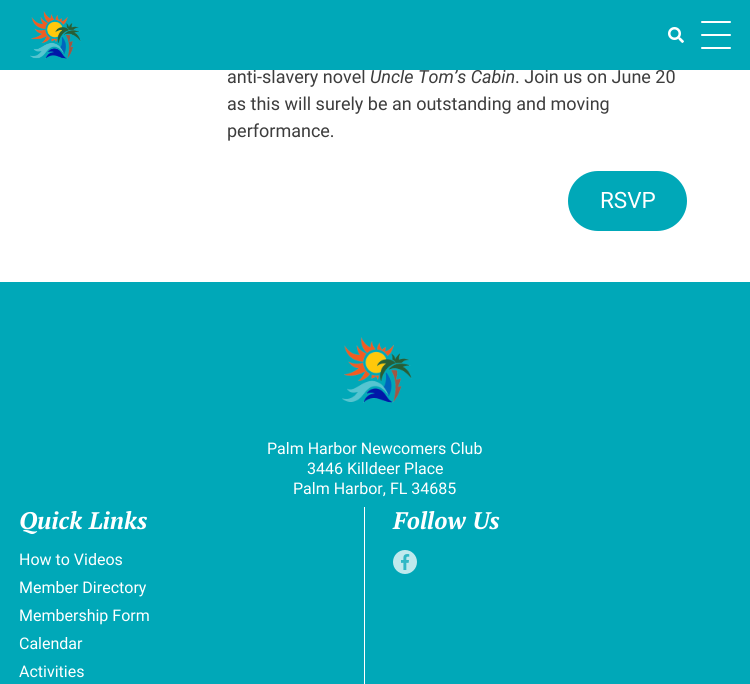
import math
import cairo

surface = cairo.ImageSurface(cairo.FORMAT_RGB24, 750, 684)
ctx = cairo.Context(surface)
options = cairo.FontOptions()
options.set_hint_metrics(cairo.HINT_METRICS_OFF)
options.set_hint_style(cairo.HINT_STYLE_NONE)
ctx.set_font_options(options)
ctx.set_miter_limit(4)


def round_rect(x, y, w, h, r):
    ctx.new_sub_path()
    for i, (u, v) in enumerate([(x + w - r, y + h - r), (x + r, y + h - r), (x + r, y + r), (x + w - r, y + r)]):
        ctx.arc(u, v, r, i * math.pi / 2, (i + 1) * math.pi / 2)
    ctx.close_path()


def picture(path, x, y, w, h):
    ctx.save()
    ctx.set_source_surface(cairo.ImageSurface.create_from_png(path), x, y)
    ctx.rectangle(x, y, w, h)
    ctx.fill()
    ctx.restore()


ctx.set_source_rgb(1, 1, 1)
ctx.paint()
ctx.select_font_face("Roboto")
ctx.set_font_size(18)
ctx.set_source_rgb(0.239, 0.239, 0.239)
ctx.move_to(227, 83)
ctx.show_text("anti-slavery novel")
ctx.select_font_face("Roboto", cairo.FONT_SLANT_ITALIC)
ctx.move_to(370, 83)
ctx.show_text("Uncle Tom’s Cabin")
ctx.set_source_rgb(0, 0.659, 0.722)
ctx.rectangle(0, 0, 750, 70)
ctx.fill()
picture("img1.png", 30, 11, 51, 48)
picture("img2.png", 668, 27, 16, 16)
ctx.set_source_rgb(1, 1, 1)
round_rect(701, 21, 30, 2, 1)
ctx.fill()
round_rect(701, 34, 30, 2, 1)
ctx.fill()
round_rect(701, 47, 30, 2, 1)
ctx.fill()
ctx.select_font_face("Roboto")
ctx.set_source_rgb(0.239, 0.239, 0.239)
ctx.move_to(515, 83)
ctx.show_text(". Join us on June 20")
ctx.move_to(227, 110)
ctx.show_text("as this will surely be an outstanding and moving")
ctx.move_to(227, 137)
ctx.show_text("performance.")
ctx.set_source_rgb(0, 0.659, 0.722)
round_rect(568, 171, 119, 60, 30)
ctx.fill()
ctx.set_font_size(22.5)
ctx.set_source_rgb(1, 1, 1)
ctx.move_to(600, 208)
ctx.show_text("RSVP")
ctx.set_source_rgb(0, 0.659, 0.722)
ctx.rectangle(0, 282, 750, 402)
ctx.fill()
picture("img3.png", 342, 337, 70, 66)
ctx.set_font_size(16)
ctx.set_source_rgb(1, 1, 1)
ctx.move_to(267, 454)
ctx.show_text("Palm Harbor Newcomers Club")
ctx.move_to(307, 474)
ctx.show_text("3446 Killdeer Place")
ctx.move_to(293, 494)
ctx.show_text("Palm Harbor, FL 34685")
ctx.rectangle(364, 507, 1, 177)
ctx.fill()
ctx.select_font_face("PT Serif", cairo.FONT_SLANT_ITALIC, cairo.FONT_WEIGHT_BOLD)
ctx.set_font_size(24)
ctx.move_to(19, 529)
ctx.show_text("Quick Links")
ctx.select_font_face("Roboto")
ctx.set_font_size(16)
ctx.move_to(19, 565)
ctx.show_text("How to Videos")
ctx.move_to(19, 593)
ctx.show_text("Member Directory")
ctx.move_to(19, 621)
ctx.show_text("Membership Form")
ctx.move_to(19, 649)
ctx.show_text("Calendar")
ctx.move_to(19, 677)
ctx.show_text("Activities")
ctx.select_font_face("PT Serif", cairo.FONT_SLANT_ITALIC, cairo.FONT_WEIGHT_BOLD)
ctx.set_font_size(24)
ctx.move_to(393, 529)
ctx.show_text("Follow Us")
ctx.set_source_rgb(0.749, 0.914, 0.929)
ctx.new_path()
ctx.arc(405, 562, 12, 0, 2 * math.pi)
ctx.fill()
picture("img4.png", 401, 554, 9, 16)
surface.write_to_png("page.png")
